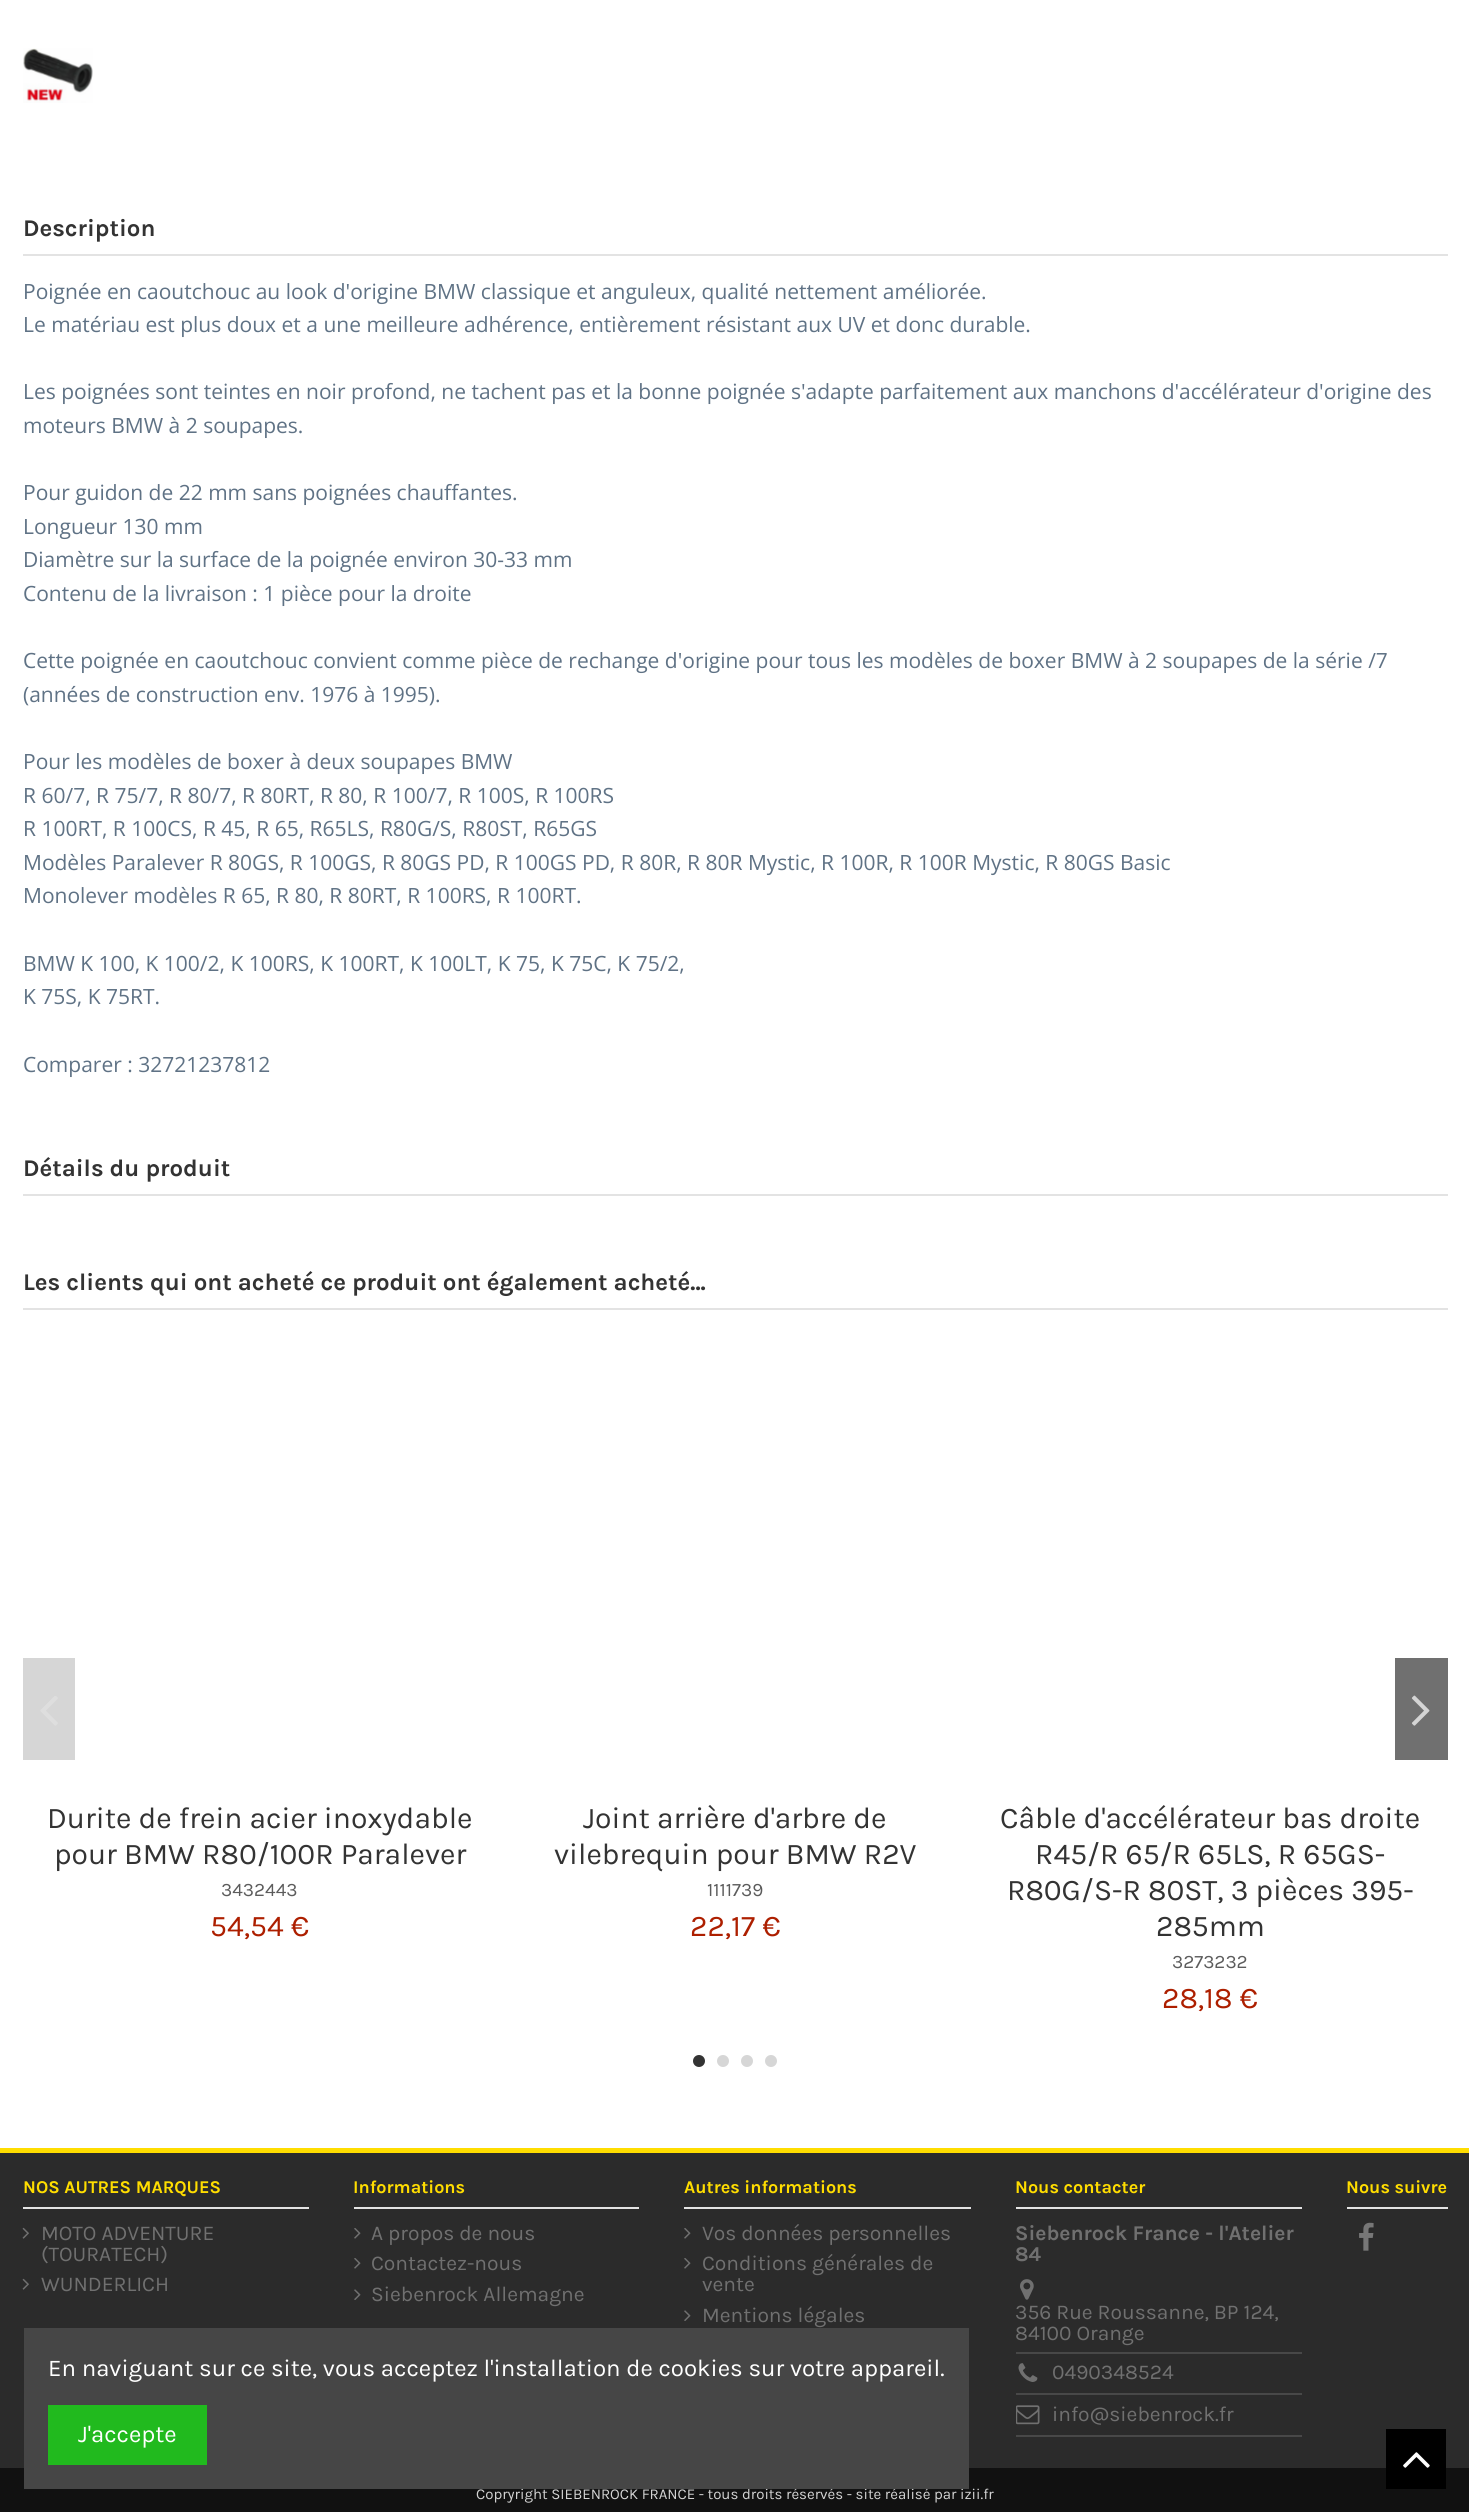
import math
import cairo

surface = cairo.ImageSurface(cairo.FORMAT_RGB24, 1469, 2512)
ctx = cairo.Context(surface)
options = cairo.FontOptions()
options.set_hint_metrics(cairo.HINT_METRICS_OFF)
options.set_hint_style(cairo.HINT_STYLE_NONE)
ctx.set_font_options(options)
ctx.set_miter_limit(4)


def picture(path, x, y, w, h):
    ctx.save()
    ctx.set_source_surface(cairo.ImageSurface.create_from_png(path), x, y)
    ctx.rectangle(x, y, w, h)
    ctx.fill()
    ctx.restore()


ctx.set_source_rgb(1, 1, 1)
ctx.paint()
picture("img1.png", 23, 48, 70, 55)
ctx.set_source_rgb(0.89, 0.89, 0.89)
ctx.rectangle(23, 254, 1425, 2)
ctx.fill()
ctx.select_font_face("Karla", cairo.FONT_SLANT_NORMAL, cairo.FONT_WEIGHT_BOLD)
ctx.set_font_size(24)
ctx.set_source_rgb(0.2, 0.2, 0.2)
ctx.move_to(23, 236)
ctx.show_text("Description")
ctx.select_font_face("Open Sans")
ctx.set_font_size(21)
ctx.set_source_rgb(0.373, 0.447, 0.522)
ctx.move_to(23, 299)
ctx.show_text("Poignée en caoutchouc au look d'origine BMW classique et anguleux, qualité nettement améliorée.")
ctx.move_to(23, 332)
ctx.show_text("Le matériau est plus doux et a une meilleure adhérence, entièrement résistant aux UV et donc durable.")
ctx.move_to(23, 399)
ctx.show_text("Les poignées sont teintes en noir profond, ne tachent pas et la bonne poignée s'adapte parfaitement aux manchons d'accélérateur d'origine des")
ctx.move_to(23, 433)
ctx.show_text("moteurs BMW à 2 soupapes.")
ctx.move_to(23, 500)
ctx.show_text("Pour guidon de 22 mm sans poignées chauffantes.")
ctx.move_to(23, 534)
ctx.show_text("Longueur 130 mm")
ctx.move_to(23, 567)
ctx.show_text("Diamètre sur la surface de la poignée environ 30-33 mm")
ctx.move_to(23, 601)
ctx.show_text("Contenu de la livraison : 1 pièce pour la droite")
ctx.move_to(23, 668)
ctx.show_text("Cette poignée en caoutchouc convient comme pièce de rechange d'origine pour tous les modèles de boxer BMW à 2 soupapes de la série /7")
ctx.move_to(23, 702)
ctx.show_text("(années de construction env. 1976 à 1995).")
ctx.move_to(23, 769)
ctx.show_text("Pour les modèles de boxer à deux soupapes BMW")
ctx.move_to(23, 803)
ctx.show_text("R 60/7, R 75/7, R 80/7, R 80RT, R 80, R 100/7, R 100S, R 100RS")
ctx.move_to(23, 836)
ctx.show_text("R 100RT, R 100CS, R 45, R 65, R65LS, R80G/S, R80ST, R65GS")
ctx.move_to(23, 870)
ctx.show_text("Modèles Paralever R 80GS, R 100GS, R 80GS PD, R 100GS PD, R 80R, R 80R Mystic, R 100R, R 100R Mystic, R 80GS Basic")
ctx.move_to(23, 903)
ctx.show_text("Monolever modèles R 65, R 80, R 80RT, R 100RS, R 100RT.")
ctx.move_to(23, 971)
ctx.show_text("BMW K 100, K 100/2, K 100RS, K 100RT, K 100LT, K 75, K 75C, K 75/2,")
ctx.move_to(23, 1004)
ctx.show_text("K 75S, K 75RT.")
ctx.move_to(23, 1072)
ctx.show_text("Comparer : 32721237812")
ctx.set_source_rgb(0.89, 0.89, 0.89)
ctx.rectangle(23, 1194, 1425, 2)
ctx.fill()
ctx.select_font_face("Karla", cairo.FONT_SLANT_NORMAL, cairo.FONT_WEIGHT_BOLD)
ctx.set_font_size(24)
ctx.set_source_rgb(0.2, 0.2, 0.2)
ctx.move_to(23, 1176)
ctx.show_text("Détails du produit")
ctx.set_source_rgb(0.89, 0.89, 0.89)
ctx.rectangle(23, 1308, 1425, 2)
ctx.fill()
ctx.set_source_rgb(0.2, 0.2, 0.2)
ctx.move_to(23, 1290)
ctx.show_text("Les clients qui ont acheté ce produit ont également acheté...")
ctx.set_source_rgb(0.839, 0.839, 0.839)
ctx.rectangle(23, 1658, 52, 102)
ctx.fill()
picture("img2.png", 40, 1696, 18, 30)
ctx.set_source_rgb(0.439, 0.439, 0.439)
ctx.rectangle(1395, 1658, 53, 102)
ctx.fill()
picture("img3.png", 1411, 1695, 19, 31)
ctx.select_font_face("Karla")
ctx.set_font_size(30)
ctx.set_source_rgb(0.2, 0.2, 0.2)
ctx.move_to(47, 1828)
ctx.show_text("Durite de frein acier inoxydable")
ctx.move_to(54, 1864)
ctx.show_text("pour BMW R80/100R Paralever")
ctx.set_font_size(19)
ctx.set_source_rgb(0.361, 0.361, 0.361)
ctx.move_to(221, 1896)
ctx.show_text("3432443")
ctx.set_font_size(30)
ctx.set_source_rgb(0.678, 0.122, 0)
ctx.move_to(210, 1936)
ctx.show_text("54,54 €")
ctx.set_source_rgb(0.2, 0.2, 0.2)
ctx.move_to(583, 1828)
ctx.show_text("Joint arrière d'arbre de")
ctx.move_to(554, 1864)
ctx.show_text("vilebrequin pour BMW R2V")
ctx.set_font_size(19)
ctx.set_source_rgb(0.361, 0.361, 0.361)
ctx.move_to(707, 1896)
ctx.show_text("1111739")
ctx.set_font_size(30)
ctx.set_source_rgb(0.678, 0.122, 0)
ctx.move_to(690, 1936)
ctx.show_text("22,17 €")
ctx.set_source_rgb(0.2, 0.2, 0.2)
ctx.move_to(1000, 1828)
ctx.show_text("Câble d'accélérateur bas droite")
ctx.move_to(1035, 1864)
ctx.show_text("R45/R 65/R 65LS, R 65GS-")
ctx.move_to(1007, 1900)
ctx.show_text("R80G/S-R 80ST, 3 pièces 395-")
ctx.move_to(1156, 1936)
ctx.show_text("285mm")
ctx.set_font_size(19)
ctx.set_source_rgb(0.361, 0.361, 0.361)
ctx.move_to(1172, 1968)
ctx.show_text("3273232")
ctx.set_font_size(30)
ctx.set_source_rgb(0.678, 0.122, 0)
ctx.move_to(1162, 2008)
ctx.show_text("28,18 €")
ctx.set_source_rgb(0.2, 0.2, 0.2)
ctx.new_path()
ctx.arc(699, 2061, 6, 0, 2 * math.pi)
ctx.fill()
ctx.set_source_rgb(0.839, 0.839, 0.839)
ctx.arc(723, 2061, 6, 0, 2 * math.pi)
ctx.fill()
ctx.arc(747, 2061, 6, 0, 2 * math.pi)
ctx.fill()
ctx.arc(771, 2061, 6, 0, 2 * math.pi)
ctx.fill()
ctx.set_source_rgb(0.169, 0.169, 0.169)
ctx.rectangle(0, 2153, 1469, 315)
ctx.fill()
ctx.set_source_rgb(1, 0.867, 0)
ctx.rectangle(0, 2148, 1469, 5)
ctx.fill()
ctx.set_source_rgb(0.89, 0.89, 0.89)
ctx.rectangle(23, 2207, 286, 2)
ctx.fill()
ctx.select_font_face("Karla", cairo.FONT_SLANT_NORMAL, cairo.FONT_WEIGHT_BOLD)
ctx.set_font_size(18)
ctx.set_source_rgb(1, 0.867, 0)
ctx.move_to(23, 2193)
ctx.show_text("NOS AUTRES MARQUES")
picture("img4.png", 22, 2227, 7, 12)
ctx.select_font_face("Karla")
ctx.set_font_size(21)
ctx.set_source_rgb(0.439, 0.439, 0.439)
ctx.move_to(41, 2240)
ctx.show_text("MOTO ADVENTURE")
ctx.move_to(41, 2261)
ctx.show_text("(TOURATECH)")
picture("img4.png", 22, 2278, 7, 12)
ctx.move_to(41, 2291)
ctx.show_text("WUNDERLICH")
ctx.set_source_rgb(0.89, 0.89, 0.89)
ctx.rectangle(354, 2207, 285, 2)
ctx.fill()
ctx.select_font_face("Karla", cairo.FONT_SLANT_NORMAL, cairo.FONT_WEIGHT_BOLD)
ctx.set_font_size(18)
ctx.set_source_rgb(1, 0.867, 0)
ctx.move_to(353, 2193)
ctx.show_text("Informations")
picture("img5.png", 354, 2228, 7, 11)
ctx.select_font_face("Karla")
ctx.set_font_size(21)
ctx.set_source_rgb(0.439, 0.439, 0.439)
ctx.move_to(371, 2240)
ctx.show_text("A propos de nous")
picture("img5.png", 354, 2258, 7, 11)
ctx.move_to(371, 2270)
ctx.show_text("Contactez-nous")
picture("img6.png", 354, 2289, 7, 11)
ctx.move_to(371, 2301)
ctx.show_text("Siebenrock Allemagne")
ctx.set_source_rgb(0.89, 0.89, 0.89)
ctx.rectangle(684, 2207, 287, 2)
ctx.fill()
ctx.select_font_face("Karla", cairo.FONT_SLANT_NORMAL, cairo.FONT_WEIGHT_BOLD)
ctx.set_font_size(18)
ctx.set_source_rgb(1, 0.867, 0)
ctx.move_to(684, 2193)
ctx.show_text("Autres informations")
picture("img5.png", 684, 2228, 7, 11)
ctx.select_font_face("Karla")
ctx.set_font_size(21)
ctx.set_source_rgb(0.439, 0.439, 0.439)
ctx.move_to(702, 2240)
ctx.show_text("Vos données personnelles")
picture("img5.png", 684, 2258, 7, 11)
ctx.move_to(702, 2270)
ctx.show_text("Conditions générales de")
ctx.move_to(702, 2291)
ctx.show_text("vente")
picture("img6.png", 684, 2310, 7, 11)
ctx.move_to(702, 2322)
ctx.show_text("Mentions légales")
ctx.set_source_rgb(0.89, 0.89, 0.89)
ctx.rectangle(1016, 2207, 286, 2)
ctx.fill()
ctx.select_font_face("Karla", cairo.FONT_SLANT_NORMAL, cairo.FONT_WEIGHT_BOLD)
ctx.set_font_size(18)
ctx.set_source_rgb(1, 0.867, 0)
ctx.move_to(1015, 2193)
ctx.show_text("Nous contacter")
ctx.set_font_size(21)
ctx.set_source_rgb(0.439, 0.439, 0.439)
ctx.move_to(1015, 2240)
ctx.show_text("Siebenrock France - l'Atelier")
ctx.move_to(1015, 2261)
ctx.show_text("84")
picture("img7.png", 1020, 2279, 14, 21)
ctx.select_font_face("Karla")
ctx.move_to(1015, 2319)
ctx.show_text("356 Rue Roussanne, BP 124,")
ctx.move_to(1015, 2340)
ctx.show_text("84100 Orange")
ctx.set_source_rgb(0.282, 0.282, 0.282)
ctx.rectangle(1016, 2352, 286, 2)
ctx.fill()
picture("img8.png", 1018, 2363, 20, 19)
ctx.set_source_rgb(0.439, 0.439, 0.439)
ctx.move_to(1052, 2379)
ctx.show_text("0490348524")
ctx.set_source_rgb(0.282, 0.282, 0.282)
ctx.rectangle(1016, 2393, 286, 2)
ctx.fill()
picture("img9.png", 1016, 2405, 24, 20)
ctx.set_source_rgb(0.439, 0.439, 0.439)
ctx.move_to(1052, 2421)
ctx.show_text("info@siebenrock.fr")
ctx.set_source_rgb(0.282, 0.282, 0.282)
ctx.rectangle(1016, 2435, 286, 2)
ctx.fill()
ctx.set_source_rgb(0.89, 0.89, 0.89)
ctx.rectangle(1347, 2207, 101, 2)
ctx.fill()
ctx.select_font_face("Karla", cairo.FONT_SLANT_NORMAL, cairo.FONT_WEIGHT_BOLD)
ctx.set_font_size(18)
ctx.set_source_rgb(1, 0.867, 0)
ctx.move_to(1346, 2193)
ctx.show_text("Nous suivre")
picture("img10.png", 1359, 2222, 15, 29)
ctx.set_source_rgb(0.067, 0.067, 0.067)
ctx.rectangle(0, 2468, 1469, 44)
ctx.fill()
ctx.select_font_face("Karla")
ctx.set_font_size(15)
ctx.set_source_rgb(0.831, 0.831, 0.831)
ctx.move_to(476, 2499)
ctx.show_text("Copryright SIEBENROCK FRANCE - tous droits réservés - site réalisé par izii.fr")
ctx.set_source_rgb(0.275, 0.275, 0.275)
ctx.rectangle(24, 2328, 945, 161)
ctx.fill()
ctx.set_font_size(24)
ctx.set_source_rgb(1, 1, 1)
ctx.move_to(48, 2376)
ctx.show_text("En naviguant sur ce site, vous acceptez l'installation de cookies sur votre appareil.")
ctx.set_source_rgb(0.129, 0.729, 0.118)
ctx.rectangle(48, 2405, 159, 60)
ctx.fill()
ctx.set_source_rgb(1, 1, 1)
ctx.move_to(78, 2442)
ctx.show_text("J'accepte")
ctx.set_source_rgb(0, 0, 0)
ctx.rectangle(1386, 2429, 60, 60)
ctx.fill()
picture("img11.png", 1403, 2452, 27, 16)
surface.write_to_png("page.png")
